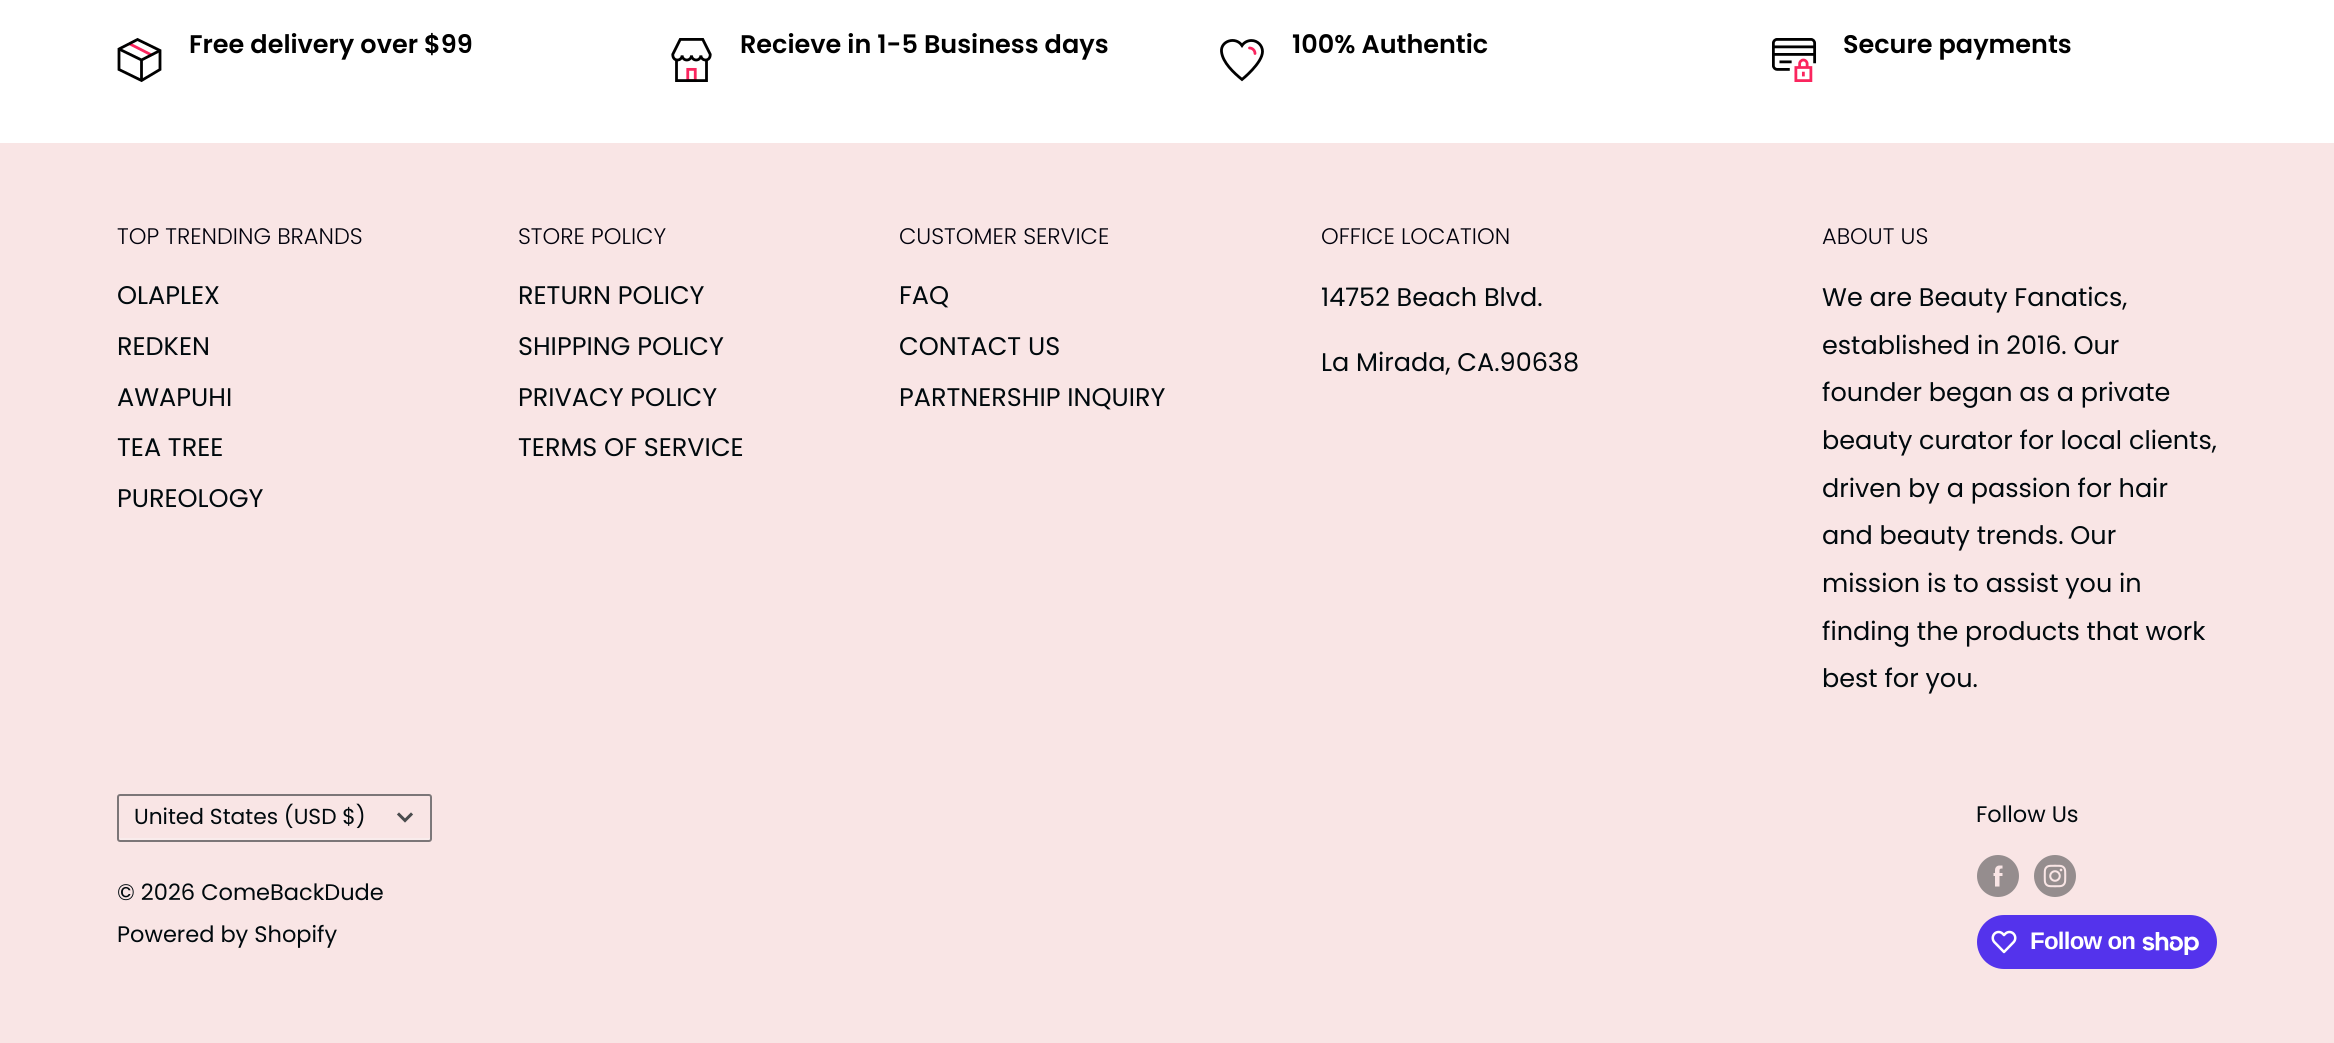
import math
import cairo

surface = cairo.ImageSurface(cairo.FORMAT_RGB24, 2334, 1043)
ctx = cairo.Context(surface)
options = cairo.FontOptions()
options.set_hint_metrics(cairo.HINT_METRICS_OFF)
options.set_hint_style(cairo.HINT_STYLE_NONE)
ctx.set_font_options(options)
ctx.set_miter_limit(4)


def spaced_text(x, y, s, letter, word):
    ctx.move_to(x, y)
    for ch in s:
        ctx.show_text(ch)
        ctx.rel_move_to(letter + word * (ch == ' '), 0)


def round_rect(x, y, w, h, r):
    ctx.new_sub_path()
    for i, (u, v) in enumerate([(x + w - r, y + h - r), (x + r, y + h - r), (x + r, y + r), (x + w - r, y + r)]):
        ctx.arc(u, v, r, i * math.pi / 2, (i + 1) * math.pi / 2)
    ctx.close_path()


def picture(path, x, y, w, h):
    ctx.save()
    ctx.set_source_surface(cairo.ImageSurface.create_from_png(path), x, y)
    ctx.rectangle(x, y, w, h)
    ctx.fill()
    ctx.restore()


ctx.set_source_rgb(1, 1, 1)
ctx.paint()
ctx.new_path()
ctx.move_to(129, 43.5)
ctx.line_to(151.5, 55)
ctx.set_source_rgb(0.98, 0.145, 0.369)
ctx.set_line_width(2.8)
ctx.stroke()
ctx.new_path()
ctx.move_to(160, 50.5)
ctx.line_to(141.5, 60)
ctx.line_to(119, 49)
ctx.move_to(141.5, 60)
ctx.line_to(141.5, 80.5)
ctx.set_source_rgb(0, 0, 0)
ctx.stroke()
ctx.new_path()
ctx.move_to(160, 50.5)
ctx.line_to(160, 69.5)
ctx.line_to(141.5, 80.5)
ctx.line_to(119, 69.5)
ctx.line_to(119, 49)
ctx.line_to(137.5, 39.5)
ctx.close_path()
ctx.set_line_cap(cairo.LINE_CAP_SQUARE)
ctx.stroke()
ctx.select_font_face("Poppins SemiBold")
ctx.set_font_size(25.5)
ctx.move_to(189, 53)
ctx.show_text("Free delivery over $99")
picture("img1.png", 671, 38, 41, 45)
ctx.move_to(740, 53)
ctx.show_text("Recieve in 1-5 Business days")
ctx.new_path()
ctx.move_to(1251.5, 40.5)
ctx.curve_to(1247.5, 40.5, 1244, 42.5, 1242, 45.5)
ctx.curve_to(1235.5, 36, 1220.5, 41, 1221.5, 51.5)
ctx.curve_to(1222.5, 62.5, 1234, 73, 1242, 79.5)
ctx.curve_to(1242, 79.5, 1262.5, 63, 1262.5, 51.5)
ctx.curve_to(1262.5, 45.5, 1257.5, 40.5, 1251.5, 40.5)
ctx.close_path()
ctx.stroke()
ctx.new_path()
ctx.move_to(1249.5, 48)
ctx.curve_to(1252.5, 48, 1255, 50.5, 1255, 53.5)
ctx.set_source_rgb(0.98, 0.145, 0.369)
ctx.set_line_cap(cairo.LINE_CAP_ROUND)
ctx.stroke()
ctx.set_source_rgb(0, 0, 0)
ctx.move_to(1292, 53)
ctx.show_text("100% Authentic")
picture("img2.png", 1772, 38, 45, 44)
ctx.move_to(1843, 53)
ctx.show_text("Secure payments")
ctx.set_source_rgb(0.973, 0.898, 0.898)
ctx.rectangle(0, 143, 2334, 900)
ctx.fill()
ctx.select_font_face("Poppins Light")
ctx.set_font_size(22.5)
ctx.set_source_rgb(0.004, 0.004, 0.047)
ctx.move_to(117, 244)
ctx.show_text("TOP TRENDING BRANDS")
ctx.select_font_face("Poppins")
ctx.set_font_size(25.5)
ctx.set_source_rgb(0, 0.039, 0.051)
ctx.move_to(117, 304)
ctx.show_text("OLAPLEX")
ctx.move_to(117, 355)
ctx.show_text("REDKEN")
ctx.move_to(117, 406)
ctx.show_text("AWAPUHI")
ctx.move_to(117, 456)
ctx.show_text("TEA TREE")
ctx.move_to(117, 507)
ctx.show_text("PUREOLOGY")
ctx.select_font_face("Poppins Light")
ctx.set_font_size(22.5)
ctx.set_source_rgb(0.004, 0.004, 0.047)
ctx.move_to(518, 244)
ctx.show_text("STORE POLICY")
ctx.select_font_face("Poppins")
ctx.set_font_size(25.5)
ctx.set_source_rgb(0, 0.039, 0.051)
ctx.move_to(518, 304)
ctx.show_text("RETURN POLICY")
ctx.move_to(518, 355)
ctx.show_text("SHIPPING POLICY")
ctx.move_to(518, 406)
ctx.show_text("PRIVACY POLICY")
ctx.move_to(518, 456)
ctx.show_text("TERMS OF SERVICE")
ctx.select_font_face("Poppins Light")
ctx.set_font_size(22.5)
ctx.set_source_rgb(0.004, 0.004, 0.047)
ctx.move_to(899, 244)
ctx.show_text("CUSTOMER SERVICE")
ctx.select_font_face("Poppins")
ctx.set_font_size(25.5)
ctx.set_source_rgb(0, 0.039, 0.051)
ctx.move_to(899, 304)
ctx.show_text("FAQ")
ctx.move_to(899, 355)
ctx.show_text("CONTACT US")
ctx.move_to(899, 406)
ctx.show_text("PARTNERSHIP INQUIRY")
ctx.select_font_face("Poppins Light")
ctx.set_font_size(22.5)
ctx.set_source_rgb(0.004, 0.004, 0.047)
ctx.move_to(1321, 244)
ctx.show_text("OFFICE LOCATION")
ctx.select_font_face("Poppins")
ctx.set_font_size(25.5)
ctx.set_source_rgb(0, 0.039, 0.051)
ctx.move_to(1321, 306)
ctx.show_text("14752 Beach Blvd.")
ctx.move_to(1321, 371)
ctx.show_text("La Mirada, CA.90638")
ctx.select_font_face("Poppins Light")
ctx.set_font_size(22.5)
ctx.set_source_rgb(0.004, 0.004, 0.047)
ctx.move_to(1822, 244)
ctx.show_text("ABOUT US")
ctx.select_font_face("Poppins")
ctx.set_font_size(25.5)
ctx.set_source_rgb(0, 0.039, 0.051)
ctx.move_to(1822, 306)
ctx.show_text("We are Beauty Fanatics,")
ctx.move_to(1822, 354)
ctx.show_text("established in 2016. Our")
ctx.move_to(1822, 401)
ctx.show_text("founder began as a private")
ctx.move_to(1822, 449)
ctx.show_text("beauty curator for local clients,")
ctx.move_to(1822, 497)
ctx.show_text("driven by a passion for hair")
ctx.move_to(1822, 544)
ctx.show_text("and beauty trends. Our")
ctx.move_to(1822, 592)
ctx.show_text("mission is to assist you in")
ctx.move_to(1822, 640)
ctx.show_text("finding the products that work")
ctx.move_to(1822, 687)
ctx.show_text("best for you.")
ctx.set_source_rgb(0.973, 0.922, 0.925)
ctx.new_path()
ctx.move_to(119, 838)
ctx.curve_to(119, 839, 120, 840, 120, 840)
ctx.line_to(430, 840)
ctx.curve_to(430, 840, 431, 839, 431, 838)
ctx.line_to(431, 796)
ctx.curve_to(431, 796, 431, 795, 430, 795)
ctx.line_to(430, 830)
ctx.curve_to(430, 832, 432, 838, 429, 838)
ctx.close_path()
ctx.fill()
round_rect(118, 795, 313, 46, 2)
ctx.set_source_rgba(0, 0.039, 0.051, 0.5)
ctx.set_line_width(2)
ctx.set_line_cap(cairo.LINE_CAP_BUTT)
ctx.stroke()
ctx.set_font_size(21.75)
ctx.set_source_rgb(0, 0.039, 0.051)
ctx.move_to(134, 824)
ctx.show_text("United States (USD $)")
ctx.new_path()
ctx.move_to(411, 814.5)
ctx.line_to(405, 820.5)
ctx.line_to(399, 814.5)
ctx.set_source_rgb(0.29, 0.298, 0.306)
ctx.set_line_width(3)
ctx.set_line_cap(cairo.LINE_CAP_SQUARE)
ctx.stroke()
ctx.set_font_size(22.5)
ctx.set_source_rgb(0, 0.039, 0.051)
ctx.move_to(117, 900)
ctx.show_text("© 2026 ComeBackDude")
ctx.move_to(117, 942)
ctx.show_text("Powered by Shopify")
ctx.move_to(1976, 822)
ctx.show_text("Follow Us")
picture("img3.png", 1977, 855, 42, 42)
picture("img4.png", 2034, 855, 42, 42)
ctx.set_source_rgb(0.329, 0.2, 0.922)
round_rect(1977, 915, 240, 54, 27)
ctx.fill()
picture("img5.png", 1991, 930, 26, 24)
ctx.select_font_face("Liberation Sans", cairo.FONT_SLANT_NORMAL, cairo.FONT_WEIGHT_BOLD)
ctx.set_font_size(24)
ctx.set_source_rgb(1, 1, 1)
spaced_text(2030, 949, "Follow on", -0.75, 0)
picture("img6.png", 2142, 932, 57, 23)
surface.write_to_png("page.png")
